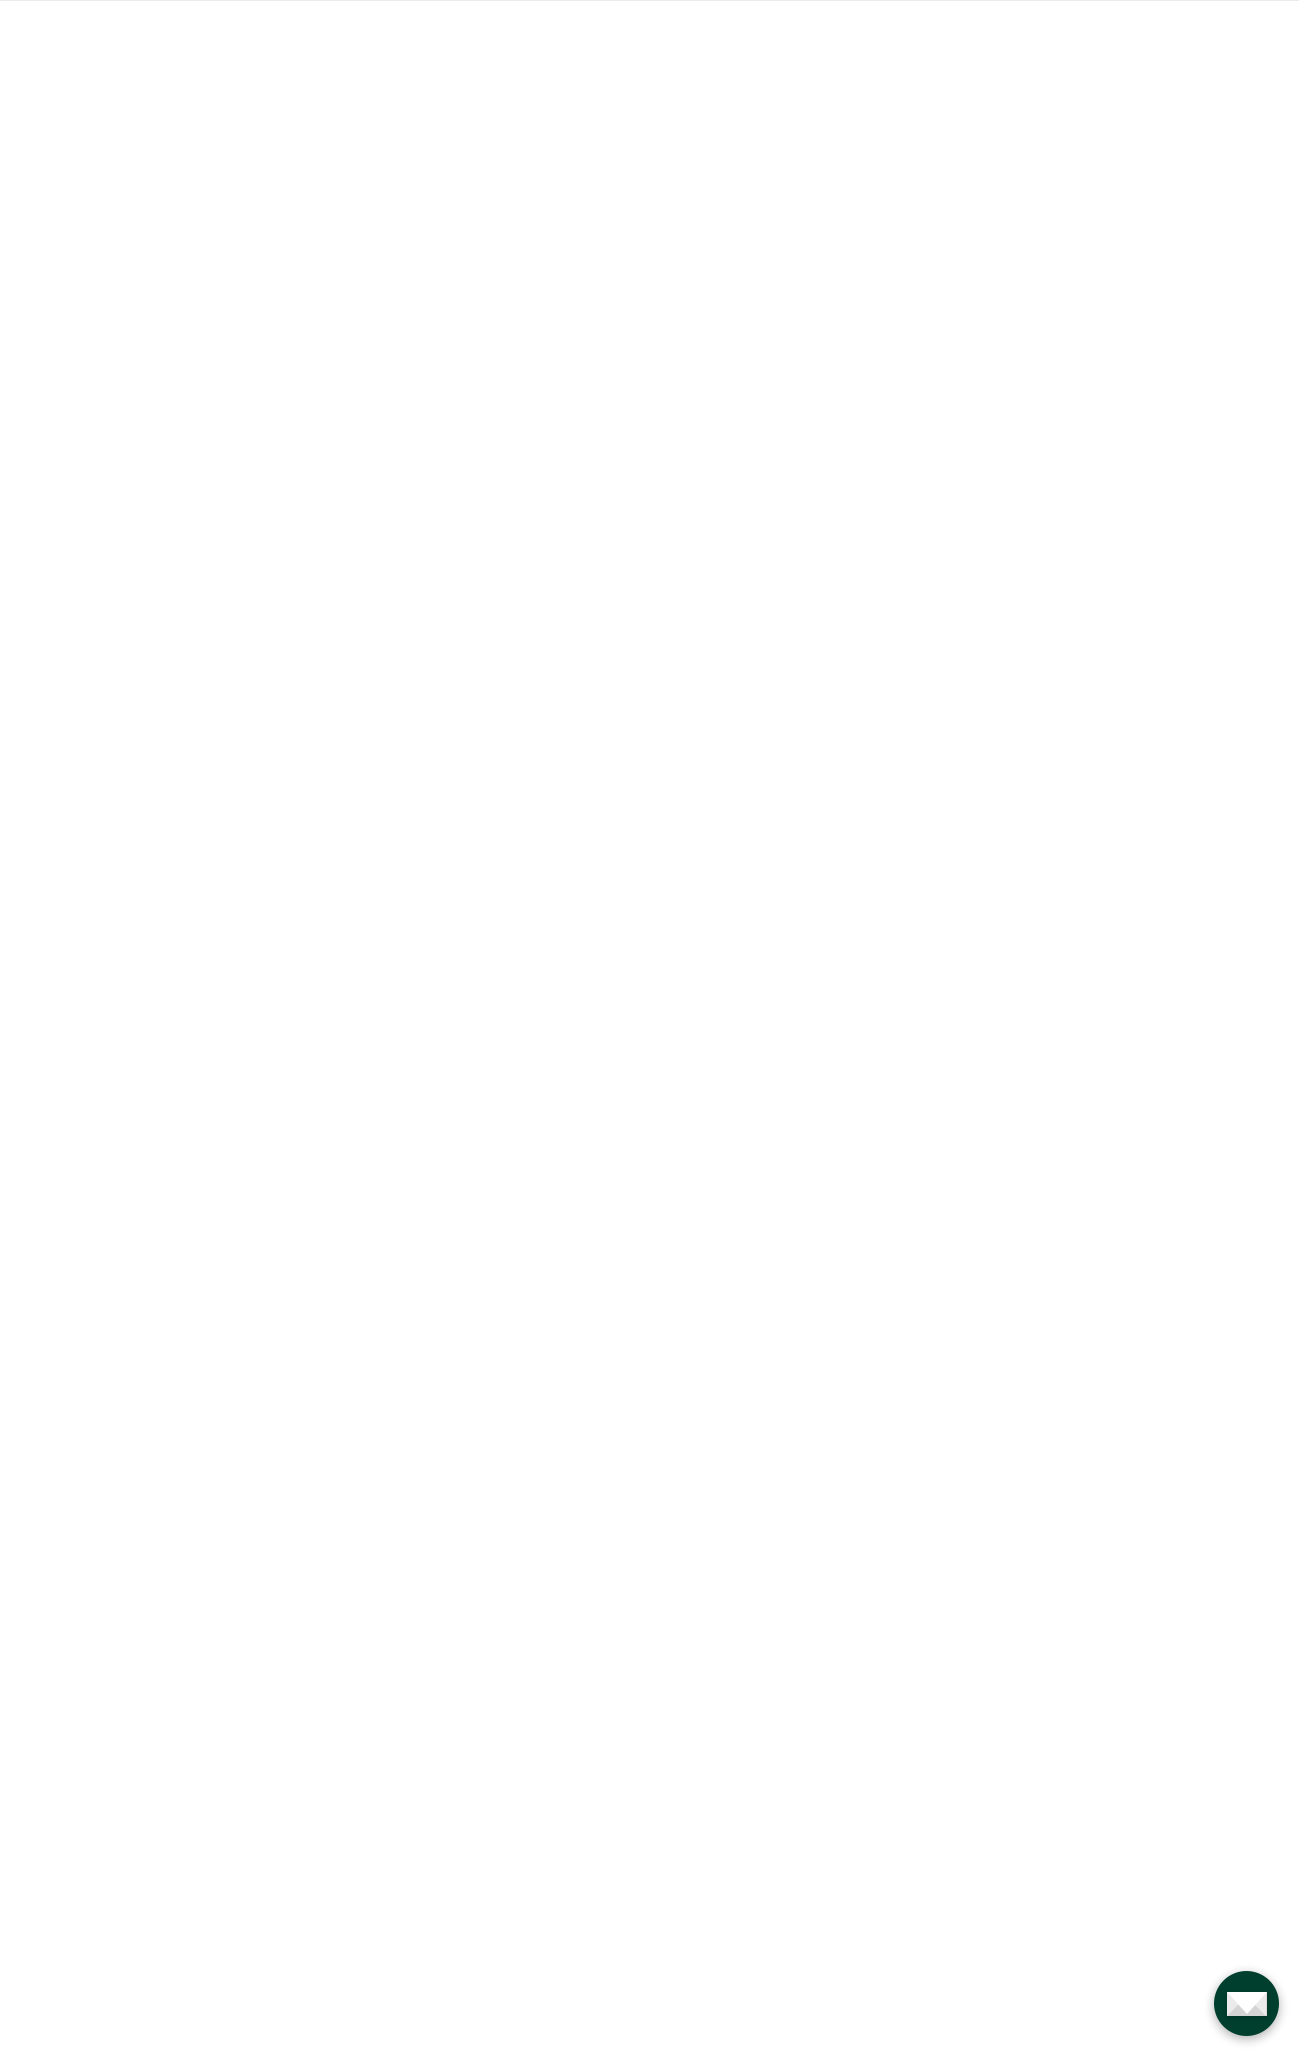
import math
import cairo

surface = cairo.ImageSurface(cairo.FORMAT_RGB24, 1299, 2063)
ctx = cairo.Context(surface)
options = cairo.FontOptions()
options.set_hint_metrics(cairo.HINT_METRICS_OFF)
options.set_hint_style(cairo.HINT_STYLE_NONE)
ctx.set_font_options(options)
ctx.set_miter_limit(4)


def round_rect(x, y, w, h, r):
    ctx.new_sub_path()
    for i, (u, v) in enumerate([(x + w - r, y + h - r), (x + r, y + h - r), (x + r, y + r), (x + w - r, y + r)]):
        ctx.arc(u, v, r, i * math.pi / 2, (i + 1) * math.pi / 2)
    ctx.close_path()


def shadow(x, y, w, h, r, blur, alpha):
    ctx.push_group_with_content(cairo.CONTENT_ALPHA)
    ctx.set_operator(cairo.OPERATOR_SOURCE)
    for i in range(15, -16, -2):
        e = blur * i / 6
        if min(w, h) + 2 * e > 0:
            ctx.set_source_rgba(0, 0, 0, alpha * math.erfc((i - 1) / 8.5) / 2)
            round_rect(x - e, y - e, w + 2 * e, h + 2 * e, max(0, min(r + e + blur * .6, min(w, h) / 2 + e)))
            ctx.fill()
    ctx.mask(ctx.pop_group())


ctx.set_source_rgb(1, 1, 1)
ctx.paint()
ctx.set_source_rgb(0.91, 0.925, 0.925)
ctx.rectangle(0, 0, 1299, 1)
ctx.fill()
ctx.set_source_rgb(0, 0, 0)
shadow(1214, 1974, 65, 65, 32.5, 5, 0.3)
ctx.set_source_rgb(0, 0.247, 0.176)
ctx.arc(1246.5, 2003.5, 32.5, 0, 2 * math.pi)
ctx.fill()
ctx.set_source_rgb(0, 0, 0)
shadow(1227, 1994, 40, 24, 0, 2.5, 0.2)
ctx.set_source_rgb(0.867, 0.867, 0.867)
ctx.rectangle(1227, 1992, 40, 24)
ctx.fill()
ctx.set_source_rgb(0.831, 0.831, 0.831)
ctx.new_path()
ctx.move_to(1267, 2016)
ctx.line_to(1227, 2016)
ctx.line_to(1247, 1994)
ctx.close_path()
ctx.fill()
ctx.set_source_rgb(0.918, 0.918, 0.918)
ctx.new_path()
ctx.move_to(1227, 2016)
ctx.line_to(1227, 1992)
ctx.line_to(1239, 2004)
ctx.close_path()
ctx.move_to(1266, 1992)
ctx.line_to(1266, 2016)
ctx.line_to(1254, 2004)
ctx.close_path()
ctx.fill()
ctx.set_source_rgb(1, 1, 1)
ctx.new_path()
ctx.move_to(1227, 1992)
ctx.line_to(1267, 1992)
ctx.line_to(1247, 2014)
ctx.close_path()
ctx.fill()
surface.write_to_png("page.png")
